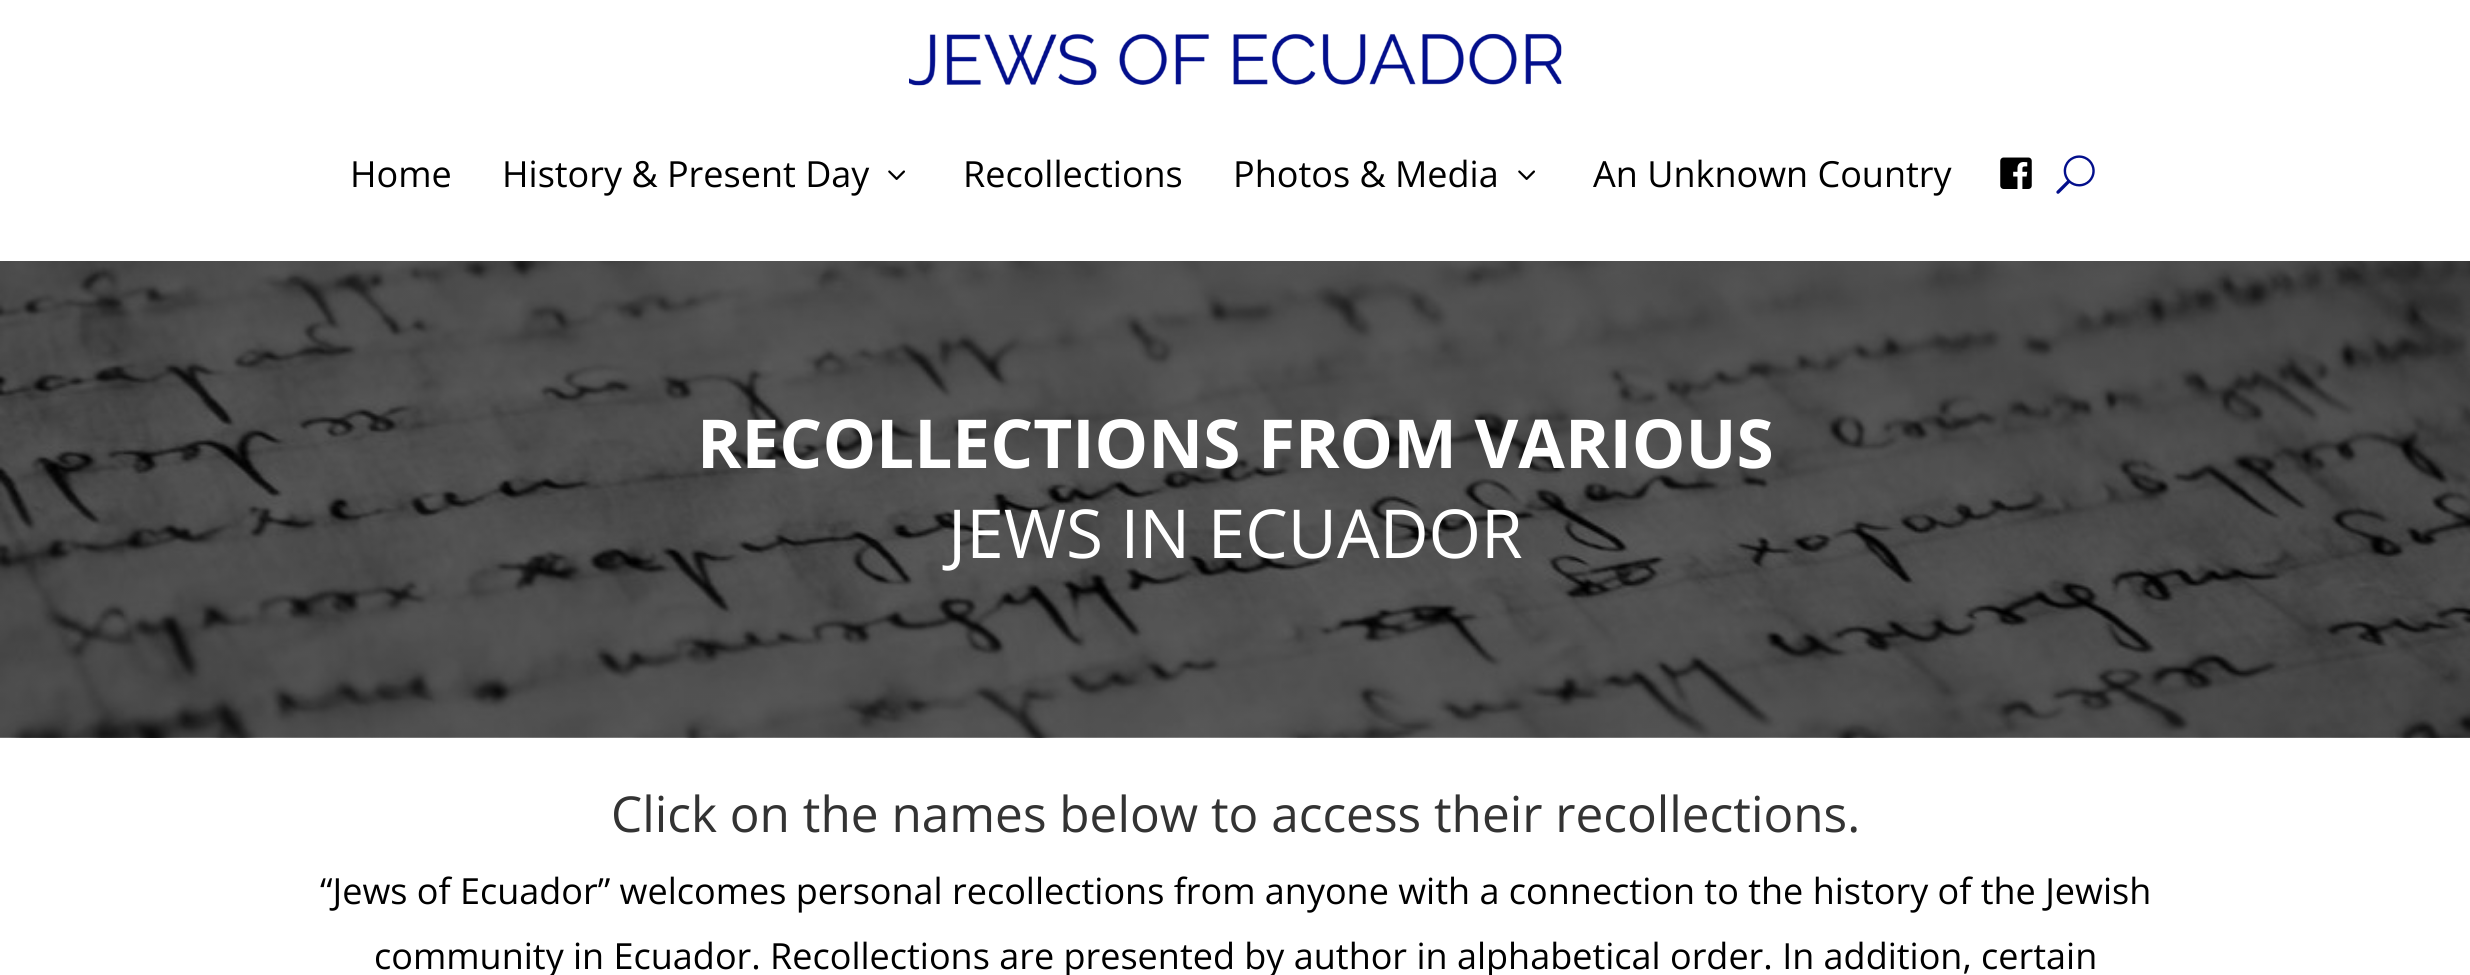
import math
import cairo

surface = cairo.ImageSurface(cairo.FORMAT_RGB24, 2470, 975)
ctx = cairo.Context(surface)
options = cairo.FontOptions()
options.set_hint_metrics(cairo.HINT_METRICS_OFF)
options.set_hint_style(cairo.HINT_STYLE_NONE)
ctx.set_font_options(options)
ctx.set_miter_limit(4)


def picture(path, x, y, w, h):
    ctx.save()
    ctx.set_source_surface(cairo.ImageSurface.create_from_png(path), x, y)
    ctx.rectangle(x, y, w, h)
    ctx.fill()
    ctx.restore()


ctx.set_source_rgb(1, 1, 1)
ctx.paint()
picture("img1.png", 909, 33, 653, 53)
ctx.select_font_face("Open Sans")
ctx.set_font_size(36)
ctx.set_source_rgb(0, 0, 0)
ctx.move_to(350, 187)
ctx.show_text("Home")
ctx.move_to(502, 187)
ctx.show_text("History & Present Day")
picture("img2.png", 888, 170, 17, 10)
ctx.move_to(963, 187)
ctx.show_text("Recollections")
ctx.move_to(1233, 187)
ctx.show_text("Photos & Media")
picture("img2.png", 1518, 170, 17, 10)
ctx.move_to(1593, 187)
ctx.show_text("An Unknown Country")
picture("img3.png", 2000, 157, 32, 32)
picture("img4.png", 2056, 155, 39, 39)
picture("img5.png", 0, 261, 2470, 477)
ctx.select_font_face("Open Sans", cairo.FONT_SLANT_NORMAL, cairo.FONT_WEIGHT_BOLD)
ctx.set_font_size(67.5)
ctx.set_source_rgb(1, 1, 1)
ctx.move_to(697, 468)
ctx.show_text("RECOLLECTIONS FROM VARIOUS")
ctx.select_font_face("Open Sans")
ctx.move_to(948, 558)
ctx.show_text("JEWS IN ECUADOR")
ctx.set_font_size(49.5)
ctx.set_source_rgb(0.2, 0.2, 0.2)
ctx.move_to(611, 832)
ctx.show_text("Click on the names below to access their recollections.")
ctx.set_font_size(36)
ctx.set_source_rgb(0, 0, 0)
ctx.move_to(320, 904)
ctx.show_text("“Jews of Ecuador” welcomes personal recollections from anyone with a connection to the history of the Jewish")
ctx.move_to(374, 969)
ctx.show_text("community in Ecuador. Recollections are presented by author in alphabetical order. In addition, certain")
surface.write_to_png("page.png")
